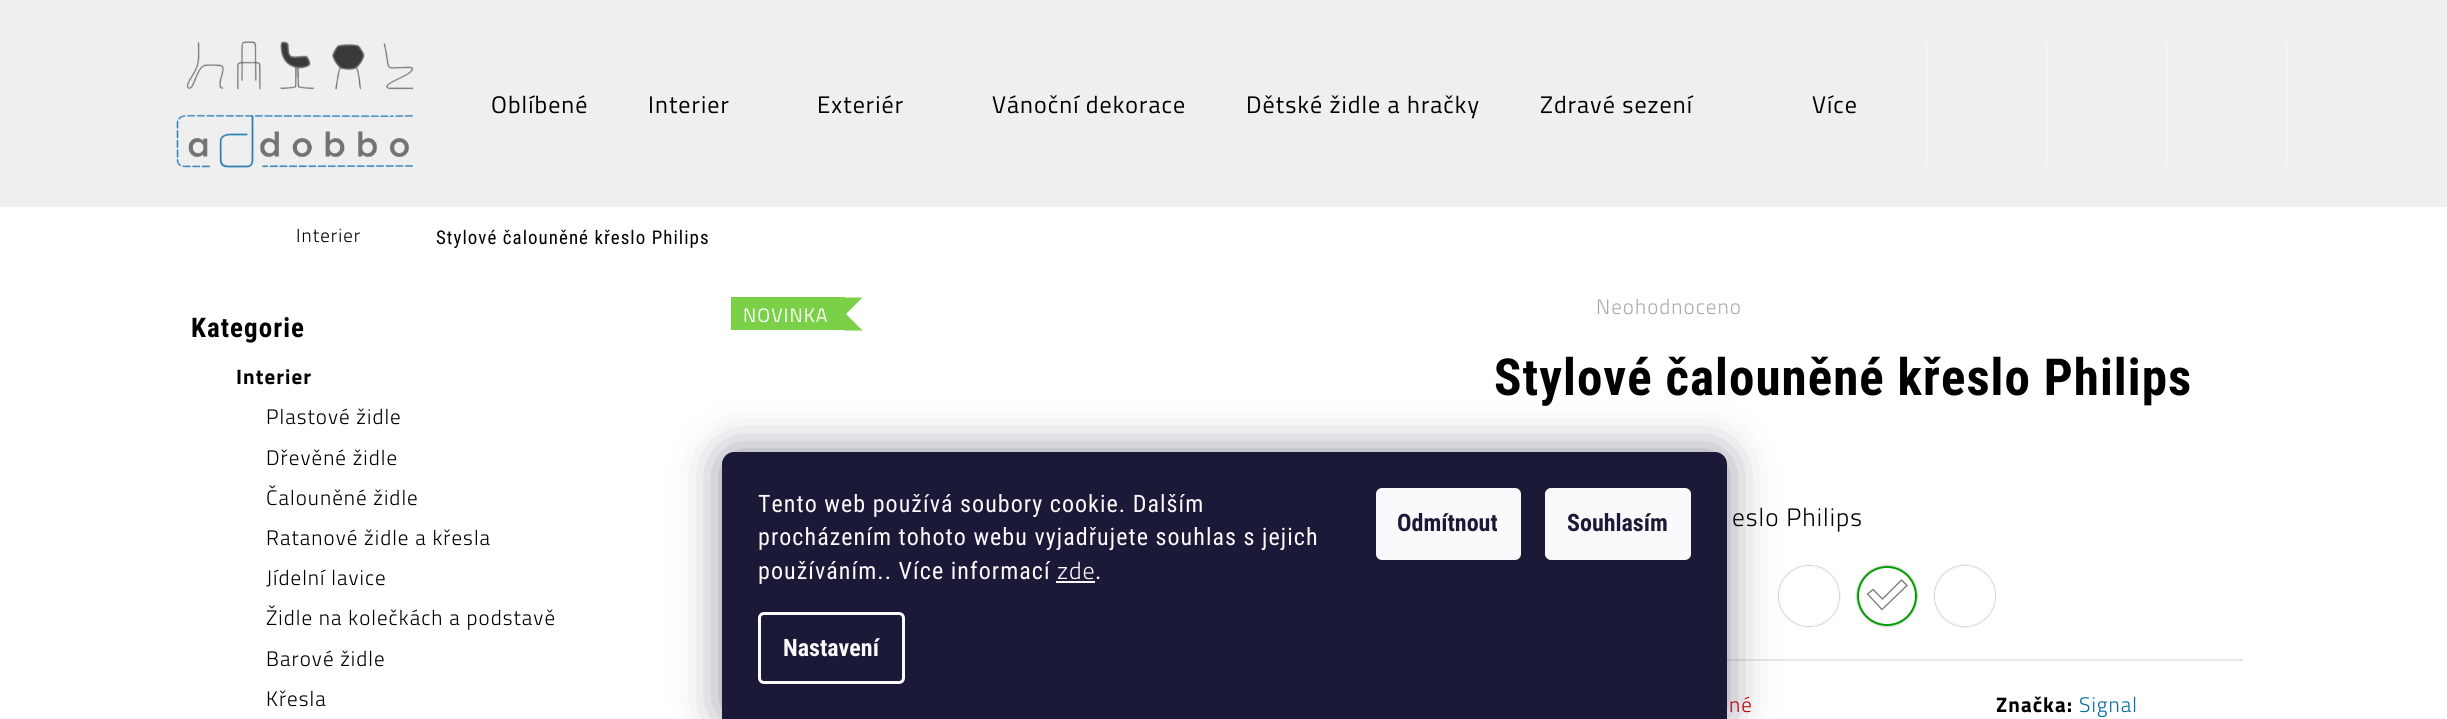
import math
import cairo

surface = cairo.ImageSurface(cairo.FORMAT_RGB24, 2447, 719)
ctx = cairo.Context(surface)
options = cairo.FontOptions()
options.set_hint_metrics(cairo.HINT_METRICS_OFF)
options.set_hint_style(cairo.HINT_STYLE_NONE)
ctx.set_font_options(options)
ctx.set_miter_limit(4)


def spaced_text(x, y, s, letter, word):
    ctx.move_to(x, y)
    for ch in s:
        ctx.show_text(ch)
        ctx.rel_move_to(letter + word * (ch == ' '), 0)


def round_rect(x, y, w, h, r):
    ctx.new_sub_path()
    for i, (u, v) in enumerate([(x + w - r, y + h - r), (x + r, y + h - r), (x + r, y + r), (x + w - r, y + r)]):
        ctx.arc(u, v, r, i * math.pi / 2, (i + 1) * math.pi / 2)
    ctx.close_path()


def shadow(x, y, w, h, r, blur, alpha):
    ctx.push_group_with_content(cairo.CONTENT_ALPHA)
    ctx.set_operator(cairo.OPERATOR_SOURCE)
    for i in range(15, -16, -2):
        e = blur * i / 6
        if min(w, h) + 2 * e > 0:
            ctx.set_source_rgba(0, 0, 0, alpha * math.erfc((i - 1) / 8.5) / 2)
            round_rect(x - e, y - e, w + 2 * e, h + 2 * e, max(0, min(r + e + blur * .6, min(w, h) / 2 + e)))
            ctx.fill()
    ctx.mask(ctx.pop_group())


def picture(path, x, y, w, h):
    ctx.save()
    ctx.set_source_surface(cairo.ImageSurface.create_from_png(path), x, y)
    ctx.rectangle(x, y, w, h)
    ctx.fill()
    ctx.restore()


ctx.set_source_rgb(1, 1, 1)
ctx.paint()
ctx.set_source_rgb(0.937, 0.937, 0.937)
ctx.rectangle(0, 0, 2447, 207)
ctx.fill()
picture("img1.png", 176, 41, 238, 127)
ctx.select_font_face("Titillium Web")
ctx.set_font_size(24)
ctx.set_source_rgb(0, 0, 0)
spaced_text(491, 113, "Oblíbené", 1.05, 0)
spaced_text(648, 113, "Interier", 1.05, 0)
spaced_text(817, 113, "Exteriér", 1.05, 0)
spaced_text(992, 113, "Vánoční dekorace", 1.05, 0)
spaced_text(1246, 113, "Dětské židle a hračky", 1.05, 0)
spaced_text(1540, 113, "Zdravé sezení", 1.05, 0)
spaced_text(1812, 113, "Více", 1.05, 0)
ctx.set_source_rgb(0.957, 0.957, 0.957)
ctx.rectangle(2286, 44, 2, 120)
ctx.fill()
ctx.rectangle(1926, 44, 2, 120)
ctx.fill()
ctx.rectangle(2046, 44, 2, 120)
ctx.fill()
ctx.rectangle(2166, 44, 2, 120)
ctx.fill()
ctx.select_font_face("Titillium Web Light")
ctx.set_font_size(18.9)
ctx.set_source_rgb(0, 0, 0)
spaced_text(296, 242, "Interier", 1.05, 0)
ctx.select_font_face("Roboto Condensed")
spaced_text(436, 244, "Stylové čalouněné křeslo Philips", 1.05, 0)
ctx.select_font_face("Roboto Condensed", cairo.FONT_SLANT_NORMAL, cairo.FONT_WEIGHT_BOLD)
ctx.set_font_size(27)
spaced_text(191, 337, "Kategorie", 1.05, 0)
ctx.select_font_face("Titillium Web", cairo.FONT_SLANT_NORMAL, cairo.FONT_WEIGHT_BOLD)
ctx.set_font_size(21)
spaced_text(236, 384, "Interier", 1.05, 0)
ctx.select_font_face("Titillium Web Light")
spaced_text(266, 424, "Plastové židle", 1.05, 0)
spaced_text(266, 465, "Dřevěné židle", 1.05, 0)
spaced_text(266, 505, "Čalouněné židle", 1.05, 0)
spaced_text(266, 545, "Ratanové židle a křesla", 1.05, 0)
spaced_text(266, 585, "Jídelní lavice", 1.05, 0)
spaced_text(266, 625, "Židle na kolečkách a podstavě", 1.05, 0)
spaced_text(266, 666, "Barové židle", 1.05, 0)
spaced_text(266, 706, "Křesla", 1.05, 0)
ctx.set_source_rgb(0.478, 0.816, 0.275)
ctx.rectangle(731, 297, 114, 33)
ctx.fill()
ctx.select_font_face("Titillium Web")
ctx.set_font_size(19.5)
ctx.set_source_rgb(1, 1, 1)
spaced_text(743, 322, "NOVINKA", 1.05, 0)
ctx.set_source_rgb(0.478, 0.816, 0.275)
ctx.new_path()
ctx.move_to(826.5, 312.5)
ctx.line_to(844.5, 312.5)
ctx.line_to(862.5, 330.5)
ctx.line_to(844.5, 330.5)
ctx.close_path()
ctx.fill()
ctx.new_path()
ctx.move_to(844.5, 297.5)
ctx.line_to(862.5, 297.5)
ctx.line_to(844.5, 315.5)
ctx.line_to(826.5, 315.5)
ctx.close_path()
ctx.fill()
ctx.select_font_face("Titillium Web Light")
ctx.set_font_size(21)
ctx.set_source_rgb(0.667, 0.667, 0.667)
spaced_text(1596, 314, "Neohodnoceno", 1.05, 0)
ctx.select_font_face("Roboto Condensed", cairo.FONT_SLANT_NORMAL, cairo.FONT_WEIGHT_BOLD)
ctx.set_font_size(51)
ctx.set_source_rgb(0, 0, 0)
spaced_text(1494, 395, "Stylové čalouněné křeslo Philips", 1.05, 0)
ctx.select_font_face("Titillium Web Light")
ctx.set_font_size(25.25)
spaced_text(1732, 526, "eslo Philips", 1.05, 0)
ctx.save()
ctx.set_fill_rule(cairo.FILL_RULE_EVEN_ODD)
ctx.new_path()
ctx.move_to(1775, 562)
ctx.line_to(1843, 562)
ctx.line_to(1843, 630)
ctx.line_to(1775, 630)
ctx.close_path()
ctx.move_to(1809, 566)
ctx.curve_to(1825.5, 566, 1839, 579.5, 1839, 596)
ctx.curve_to(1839, 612.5, 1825.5, 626, 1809, 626)
ctx.curve_to(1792.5, 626, 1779, 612.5, 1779, 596)
ctx.curve_to(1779, 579.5, 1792.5, 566, 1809, 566)
ctx.close_path()
ctx.clip()
ctx.set_source_rgb(0, 0, 0)
shadow(1779, 566, 60, 60, 30, 1, 0.5)
ctx.restore()
ctx.arc(1809, 596, 29, 0, 2 * math.pi)
ctx.set_source_rgb(0.988, 0.988, 0.988)
ctx.stroke()
ctx.save()
ctx.set_fill_rule(cairo.FILL_RULE_EVEN_ODD)
ctx.new_path()
ctx.move_to(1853, 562)
ctx.line_to(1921, 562)
ctx.line_to(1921, 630)
ctx.line_to(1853, 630)
ctx.close_path()
ctx.move_to(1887, 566)
ctx.curve_to(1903.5, 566, 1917, 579.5, 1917, 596)
ctx.curve_to(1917, 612.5, 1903.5, 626, 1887, 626)
ctx.curve_to(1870.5, 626, 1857, 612.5, 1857, 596)
ctx.curve_to(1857, 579.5, 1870.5, 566, 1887, 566)
ctx.close_path()
ctx.clip()
ctx.set_source_rgb(0, 0, 0)
shadow(1857, 566, 60, 60, 30, 1, 0.5)
ctx.restore()
ctx.arc(1887, 596, 29, 0, 2 * math.pi)
ctx.set_source_rgb(0, 0.612, 0)
ctx.stroke()
ctx.new_path()
ctx.move_to(1901.5, 580)
ctx.line_to(1882.5, 599)
ctx.line_to(1873, 589.5)
ctx.line_to(1867.5, 594)
ctx.line_to(1882, 609.5)
ctx.line_to(1907, 585.5)
ctx.close_path()
ctx.set_source_rgb(0.502, 0.502, 0.502)
ctx.set_line_width(1.4)
ctx.stroke()
ctx.save()
ctx.set_fill_rule(cairo.FILL_RULE_EVEN_ODD)
ctx.new_path()
ctx.move_to(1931, 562)
ctx.line_to(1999, 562)
ctx.line_to(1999, 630)
ctx.line_to(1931, 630)
ctx.close_path()
ctx.move_to(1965, 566)
ctx.curve_to(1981.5, 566, 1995, 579.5, 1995, 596)
ctx.curve_to(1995, 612.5, 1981.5, 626, 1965, 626)
ctx.curve_to(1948.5, 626, 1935, 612.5, 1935, 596)
ctx.curve_to(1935, 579.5, 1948.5, 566, 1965, 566)
ctx.close_path()
ctx.clip()
ctx.set_source_rgb(0, 0, 0)
shadow(1935, 566, 60, 60, 30, 1, 0.5)
ctx.restore()
ctx.arc(1965, 596, 29, 0, 2 * math.pi)
ctx.set_source_rgb(0.988, 0.988, 0.988)
ctx.set_line_width(2)
ctx.stroke()
ctx.set_source_rgb(0.906, 0.906, 0.906)
ctx.rectangle(1727, 659, 516, 2)
ctx.fill()
ctx.set_font_size(21)
ctx.set_source_rgb(0.796, 0, 0)
spaced_text(1729, 712, "né", 1.05, 0)
ctx.select_font_face("Titillium Web", cairo.FONT_SLANT_NORMAL, cairo.FONT_WEIGHT_BOLD)
ctx.set_source_rgb(0, 0, 0)
spaced_text(1996, 712, "Značka:", 1.05, 0)
ctx.select_font_face("Titillium Web Light")
ctx.set_source_rgb(0.004, 0.42, 0.647)
spaced_text(2079, 712, "Signal", 1.05, 0)
ctx.set_source_rgb(0.106, 0.098, 0.224)
shadow(722, 452, 1005, 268, 12, 22.5, 0.5)
ctx.set_source_rgb(0.102, 0.098, 0.216)
ctx.new_path()
ctx.move_to(734, 452)
ctx.line_to(1715, 452)
ctx.curve_to(1721.5, 452, 1727, 457.5, 1727, 464)
ctx.line_to(1727, 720)
ctx.line_to(722, 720)
ctx.line_to(722, 464)
ctx.curve_to(722, 457.5, 727.5, 452, 734, 452)
ctx.close_path()
ctx.fill()
ctx.select_font_face("Roboto Condensed")
ctx.set_font_size(24)
ctx.set_source_rgb(0.973, 0.98, 0.984)
spaced_text(758, 512, "Tento web používá soubory cookie. Dalším", 1.05, 0)
spaced_text(758, 545, "procházením tohoto webu vyjadřujete souhlas s jejich", 1.05, 0)
spaced_text(758, 579, "používáním.. Více informací", 1.05, 0)
ctx.select_font_face("Titillium Web Light")
spaced_text(1057, 579, "zde", 1.05, 0)
ctx.rectangle(1056, 581, 39, 2)
ctx.fill()
ctx.select_font_face("Roboto Condensed")
spaced_text(1095, 579, ".", 1.05, 0)
round_rect(759.5, 613.5, 144, 69, 4.5)
ctx.set_line_width(3)
ctx.stroke()
ctx.select_font_face("Roboto Condensed", cairo.FONT_SLANT_NORMAL, cairo.FONT_WEIGHT_BOLD)
ctx.move_to(783, 656)
ctx.show_text("Nastavení")
round_rect(1376, 488, 145, 72, 6)
ctx.fill()
ctx.set_source_rgb(0.102, 0.098, 0.216)
ctx.move_to(1397, 531)
ctx.show_text("Odmítnout")
ctx.set_source_rgb(0.973, 0.98, 0.984)
round_rect(1545, 488, 146, 72, 6)
ctx.fill()
ctx.set_source_rgb(0.102, 0.098, 0.216)
ctx.move_to(1567, 531)
ctx.show_text("Souhlasím")
surface.write_to_png("page.png")
